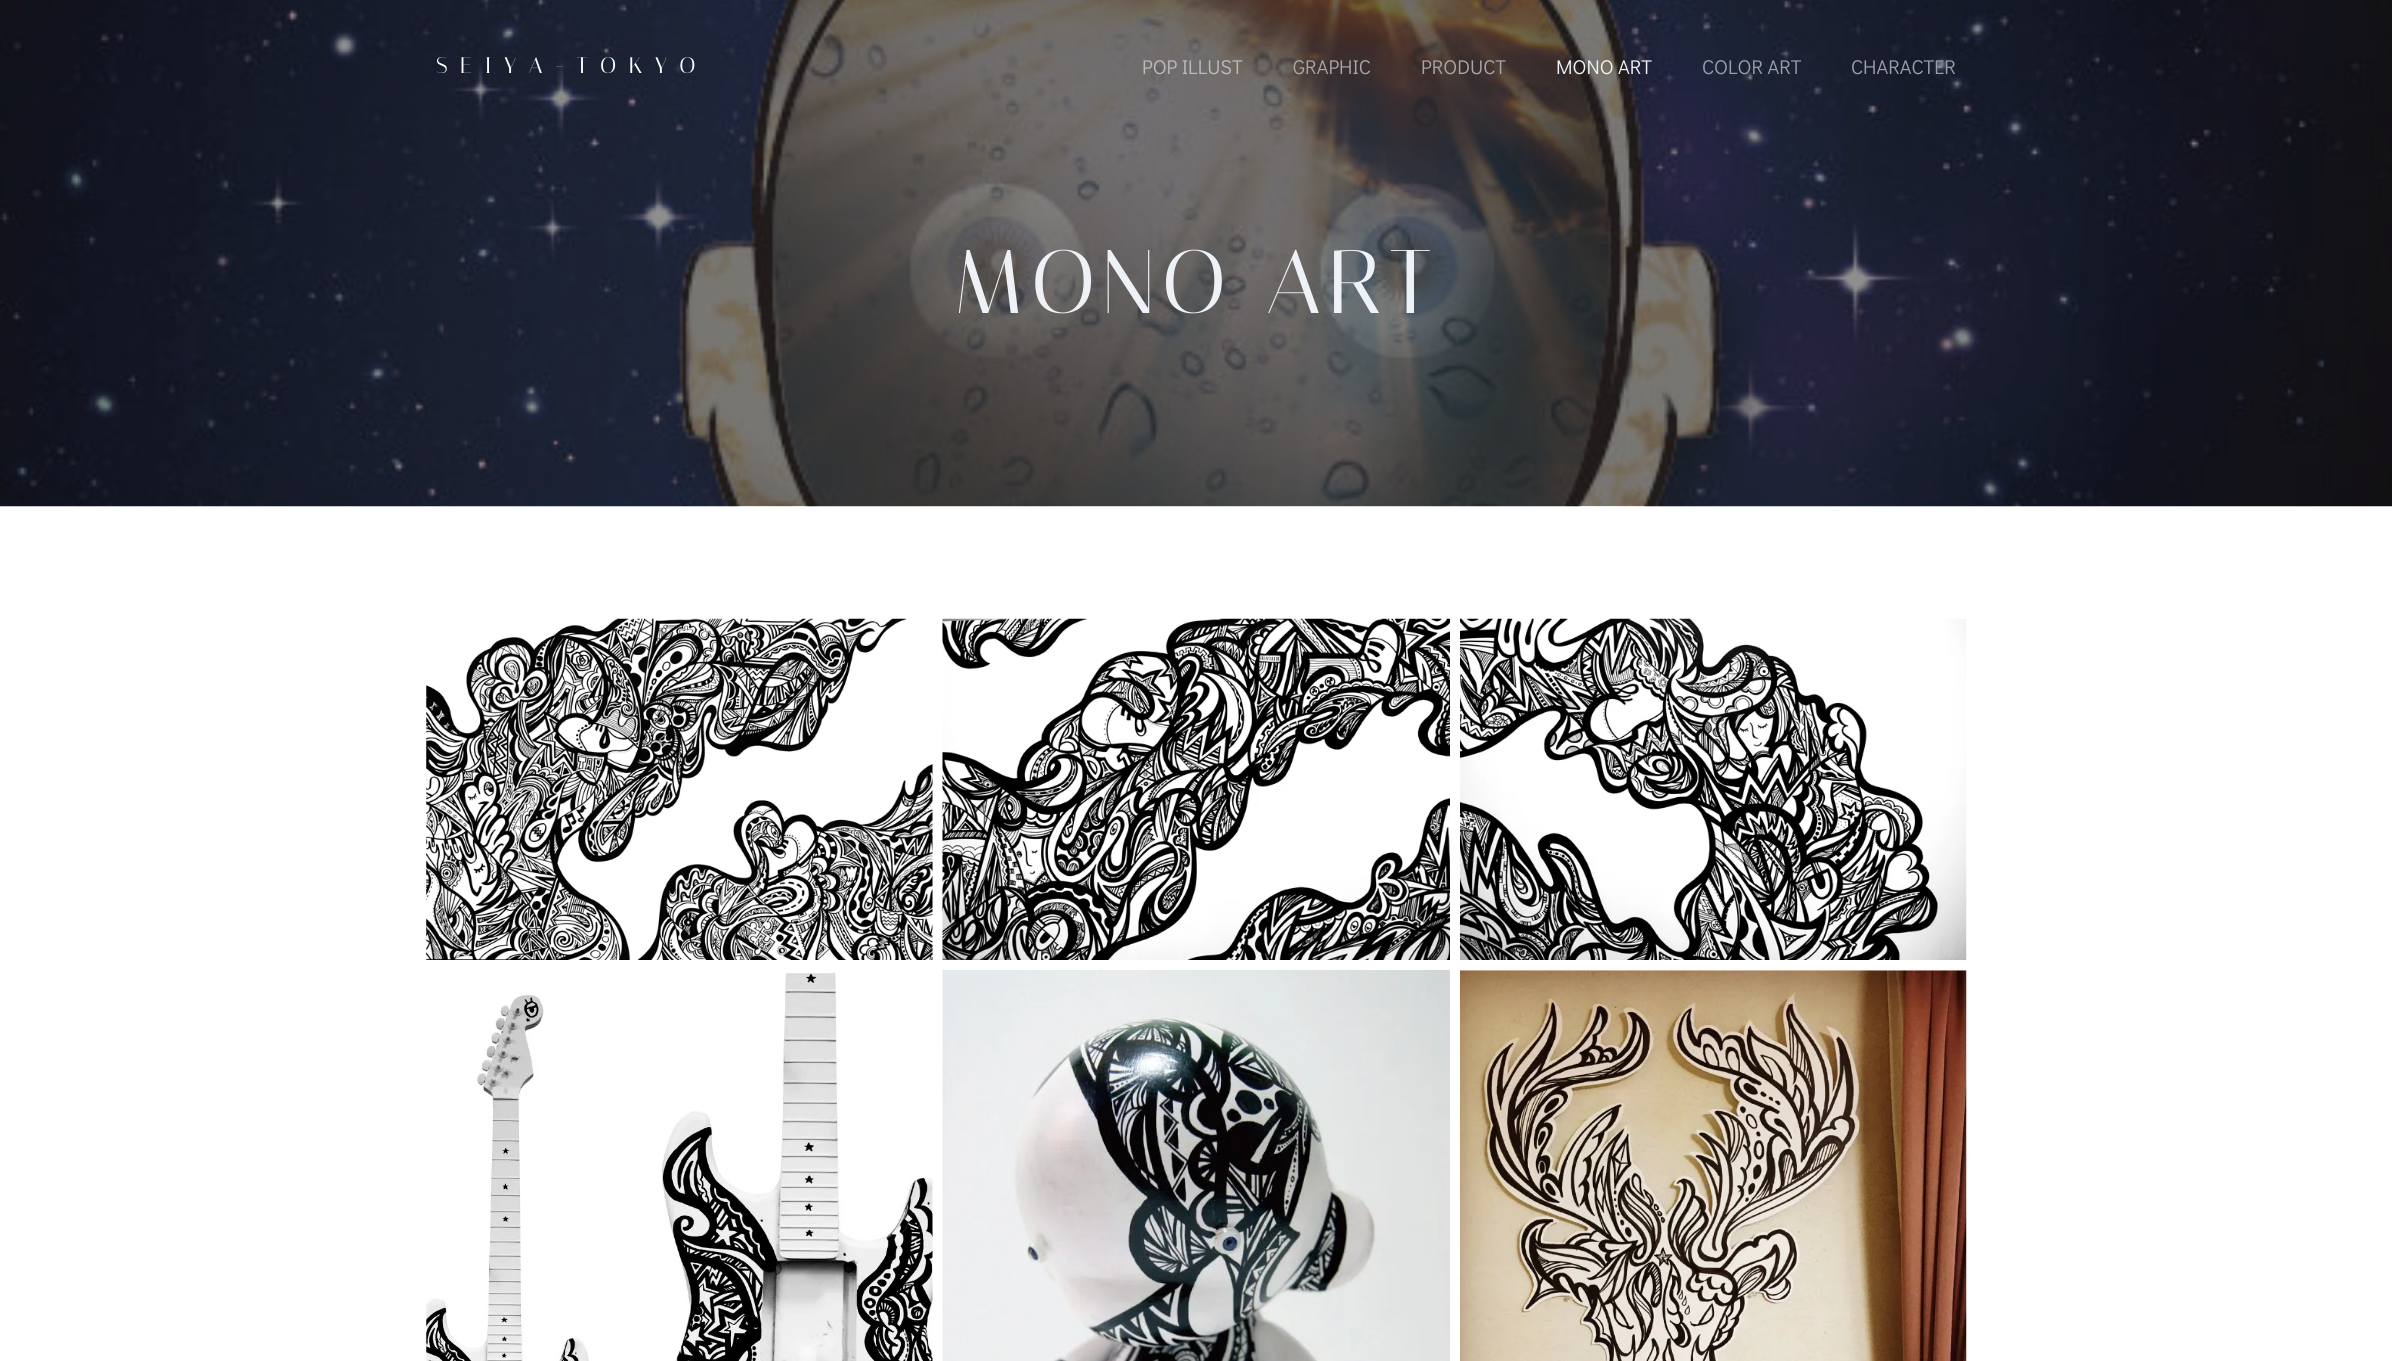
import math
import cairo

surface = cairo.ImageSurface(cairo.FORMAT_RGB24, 2392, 1361)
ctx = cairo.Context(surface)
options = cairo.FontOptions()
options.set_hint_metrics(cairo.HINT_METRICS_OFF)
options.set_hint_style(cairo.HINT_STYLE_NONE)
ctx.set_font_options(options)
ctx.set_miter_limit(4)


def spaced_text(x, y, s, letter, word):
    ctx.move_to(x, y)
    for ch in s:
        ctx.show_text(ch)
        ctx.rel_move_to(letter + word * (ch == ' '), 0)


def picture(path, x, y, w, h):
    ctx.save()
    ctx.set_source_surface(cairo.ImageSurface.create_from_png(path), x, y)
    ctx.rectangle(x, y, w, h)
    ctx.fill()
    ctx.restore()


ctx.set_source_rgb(1, 1, 1)
ctx.paint()
picture("img1.png", 0, 0, 2392, 507)
ctx.select_font_face("Italiana")
ctx.set_font_size(22.5)
ctx.set_source_rgb(1, 1, 1)
spaced_text(436, 73, "SEIYA-TOKYO", 12.5, 0)
ctx.select_font_face("Didact Gothic")
ctx.set_font_size(20)
ctx.set_source_rgb(0.733, 0.733, 0.741)
ctx.move_to(1142, 74)
ctx.show_text("POP ILLUST")
ctx.set_source_rgb(0.663, 0.651, 0.659)
ctx.move_to(1293, 74)
ctx.show_text("GRAPHIC")
ctx.move_to(1421, 74)
ctx.show_text("PRODUCT")
ctx.set_source_rgb(0.933, 0.945, 0.961)
ctx.move_to(1556, 74)
ctx.show_text("MONO ART")
ctx.set_source_rgb(0.604, 0.62, 0.659)
ctx.move_to(1702, 74)
ctx.show_text("COLOR ART")
ctx.move_to(1851, 74)
ctx.show_text("CHARACTER")
ctx.select_font_face("Italiana")
ctx.set_font_size(90)
ctx.set_source_rgb(0.933, 0.945, 0.961)
spaced_text(953, 313, "MONO ART", 6.25, 0)
picture("img2.png", 426, 618, 507, 342)
picture("img3.png", 942, 618, 508, 342)
picture("img4.png", 1460, 618, 507, 342)
picture("img5.png", 426, 971, 507, 390)
picture("img6.png", 942, 970, 508, 391)
picture("img7.png", 1460, 970, 507, 391)
surface.write_to_png("page.png")
